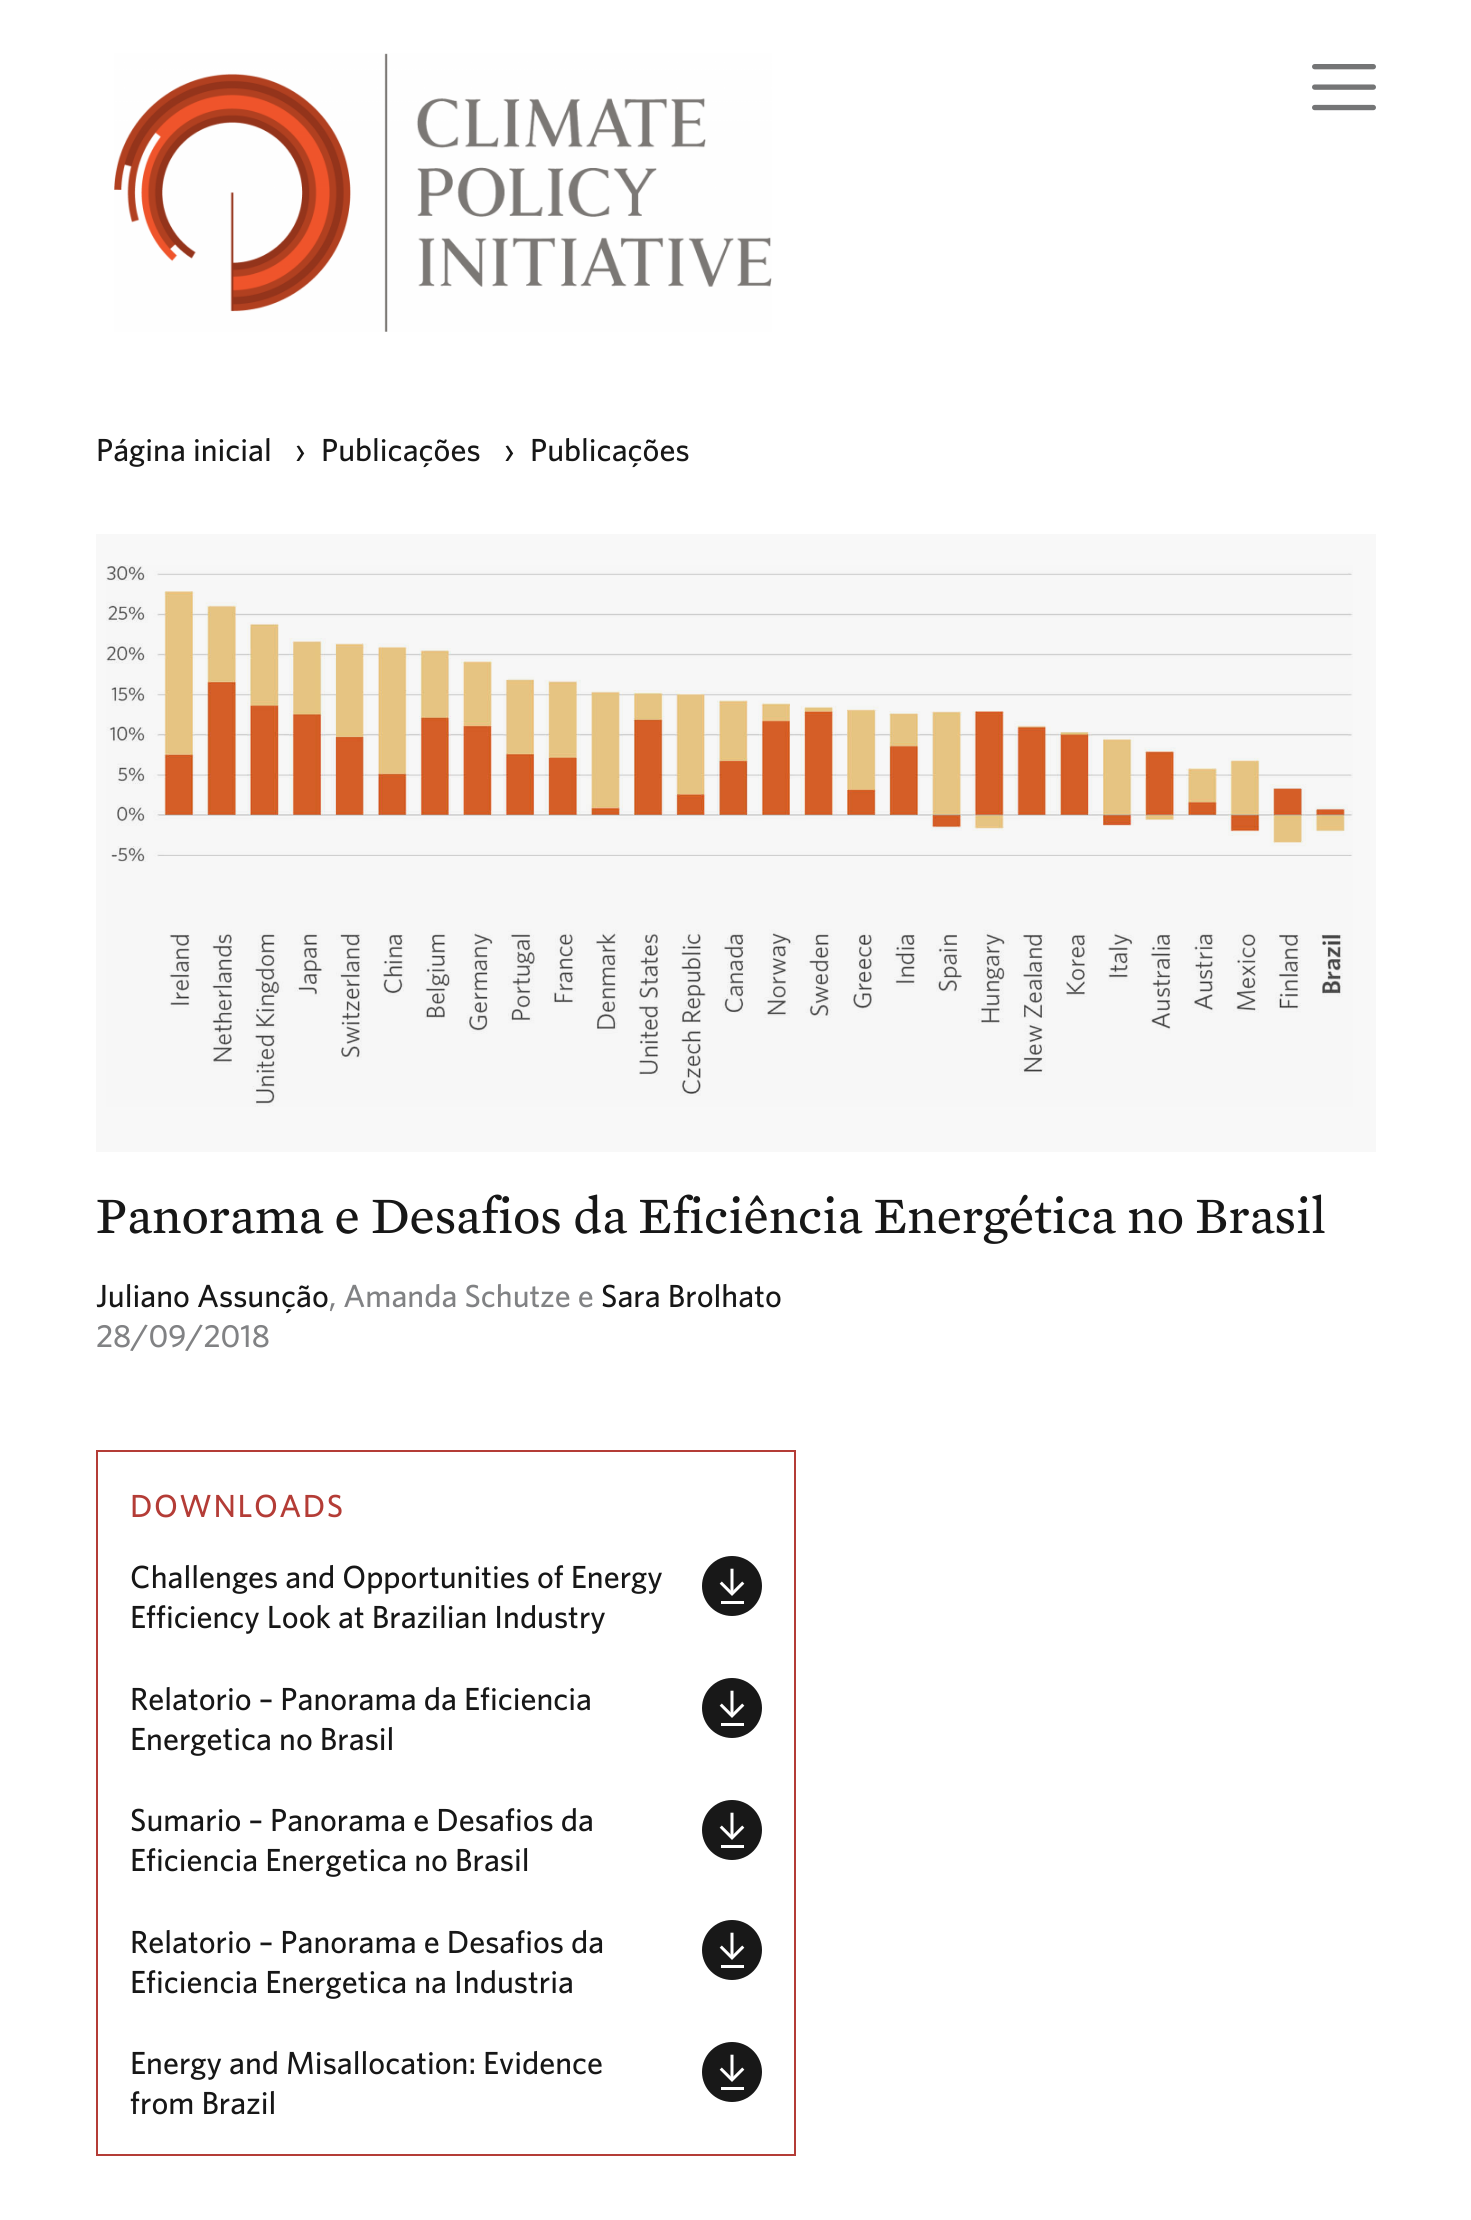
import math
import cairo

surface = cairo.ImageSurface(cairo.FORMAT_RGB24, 1471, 2220)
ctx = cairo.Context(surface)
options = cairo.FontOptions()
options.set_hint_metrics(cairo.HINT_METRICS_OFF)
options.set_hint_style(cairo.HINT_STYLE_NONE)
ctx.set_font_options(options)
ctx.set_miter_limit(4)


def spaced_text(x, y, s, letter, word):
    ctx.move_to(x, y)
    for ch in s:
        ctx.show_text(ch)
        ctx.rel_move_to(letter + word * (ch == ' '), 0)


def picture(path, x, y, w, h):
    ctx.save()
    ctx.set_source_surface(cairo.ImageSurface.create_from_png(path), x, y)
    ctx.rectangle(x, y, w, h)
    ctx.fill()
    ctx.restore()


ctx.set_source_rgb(1, 1, 1)
ctx.paint()
ctx.set_source_rgb(0.969, 0.969, 0.969)
ctx.rectangle(96, 534, 1280, 618)
ctx.fill()
picture("img1.png", 114, 53, 658, 279)
picture("img2.png", 1312, 64, 64, 47)
ctx.select_font_face("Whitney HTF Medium")
ctx.set_font_size(32)
ctx.set_source_rgb(0.09, 0.09, 0.09)
ctx.move_to(96, 461)
ctx.show_text("Página inicial")
ctx.move_to(295, 461)
ctx.show_text("›")
ctx.move_to(321, 461)
ctx.show_text("Publicações")
ctx.move_to(504, 461)
ctx.show_text("›")
ctx.move_to(530, 461)
ctx.show_text("Publicações")
picture("img3.png", 106, 565, 1247, 542)
ctx.select_font_face("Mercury")
ctx.set_font_size(52)
ctx.move_to(96, 1233)
ctx.show_text("Panorama e Desafios da Eficiência Energética no Brasil")
ctx.select_font_face("Whitney HTF Medium")
ctx.set_font_size(32)
ctx.move_to(96, 1307)
ctx.show_text("Juliano Assunção")
ctx.set_source_rgb(0.506, 0.51, 0.518)
ctx.move_to(329, 1307)
ctx.show_text(", Amanda Schutze e")
ctx.set_source_rgb(0.09, 0.09, 0.09)
ctx.move_to(601, 1307)
ctx.show_text("Sara Brolhato")
ctx.set_source_rgb(0.506, 0.51, 0.518)
ctx.move_to(96, 1347)
ctx.show_text("28/09/2018")
ctx.rectangle(97, 1451, 698, 704)
ctx.set_source_rgb(0.706, 0.235, 0.212)
ctx.stroke()
spaced_text(130, 1517, "DOWNLOADS", 1.5, 0)
ctx.set_source_rgb(0.09, 0.09, 0.09)
ctx.move_to(130, 1588)
ctx.show_text("Challenges and Opportunities of Energy")
picture("img4.png", 702, 1556, 60, 60)
ctx.move_to(130, 1628)
ctx.show_text("Efficiency Look at Brazilian Industry")
ctx.move_to(130, 1710)
ctx.show_text("Relatorio – Panorama da Eficiencia")
picture("img4.png", 702, 1678, 60, 60)
ctx.move_to(130, 1750)
ctx.show_text("Energetica no Brasil")
ctx.move_to(130, 1831)
ctx.show_text("Sumario – Panorama e Desafios da")
picture("img4.png", 702, 1800, 60, 60)
ctx.move_to(130, 1871)
ctx.show_text("Eficiencia Energetica no Brasil")
ctx.move_to(130, 1953)
ctx.show_text("Relatorio – Panorama e Desafios da")
picture("img4.png", 702, 1920, 60, 60)
ctx.move_to(130, 1993)
ctx.show_text("Eficiencia Energetica na Industria")
ctx.move_to(130, 2074)
ctx.show_text("Energy and Misallocation: Evidence")
picture("img4.png", 702, 2042, 60, 60)
ctx.move_to(130, 2114)
ctx.show_text("from Brazil")
surface.write_to_png("page.png")
